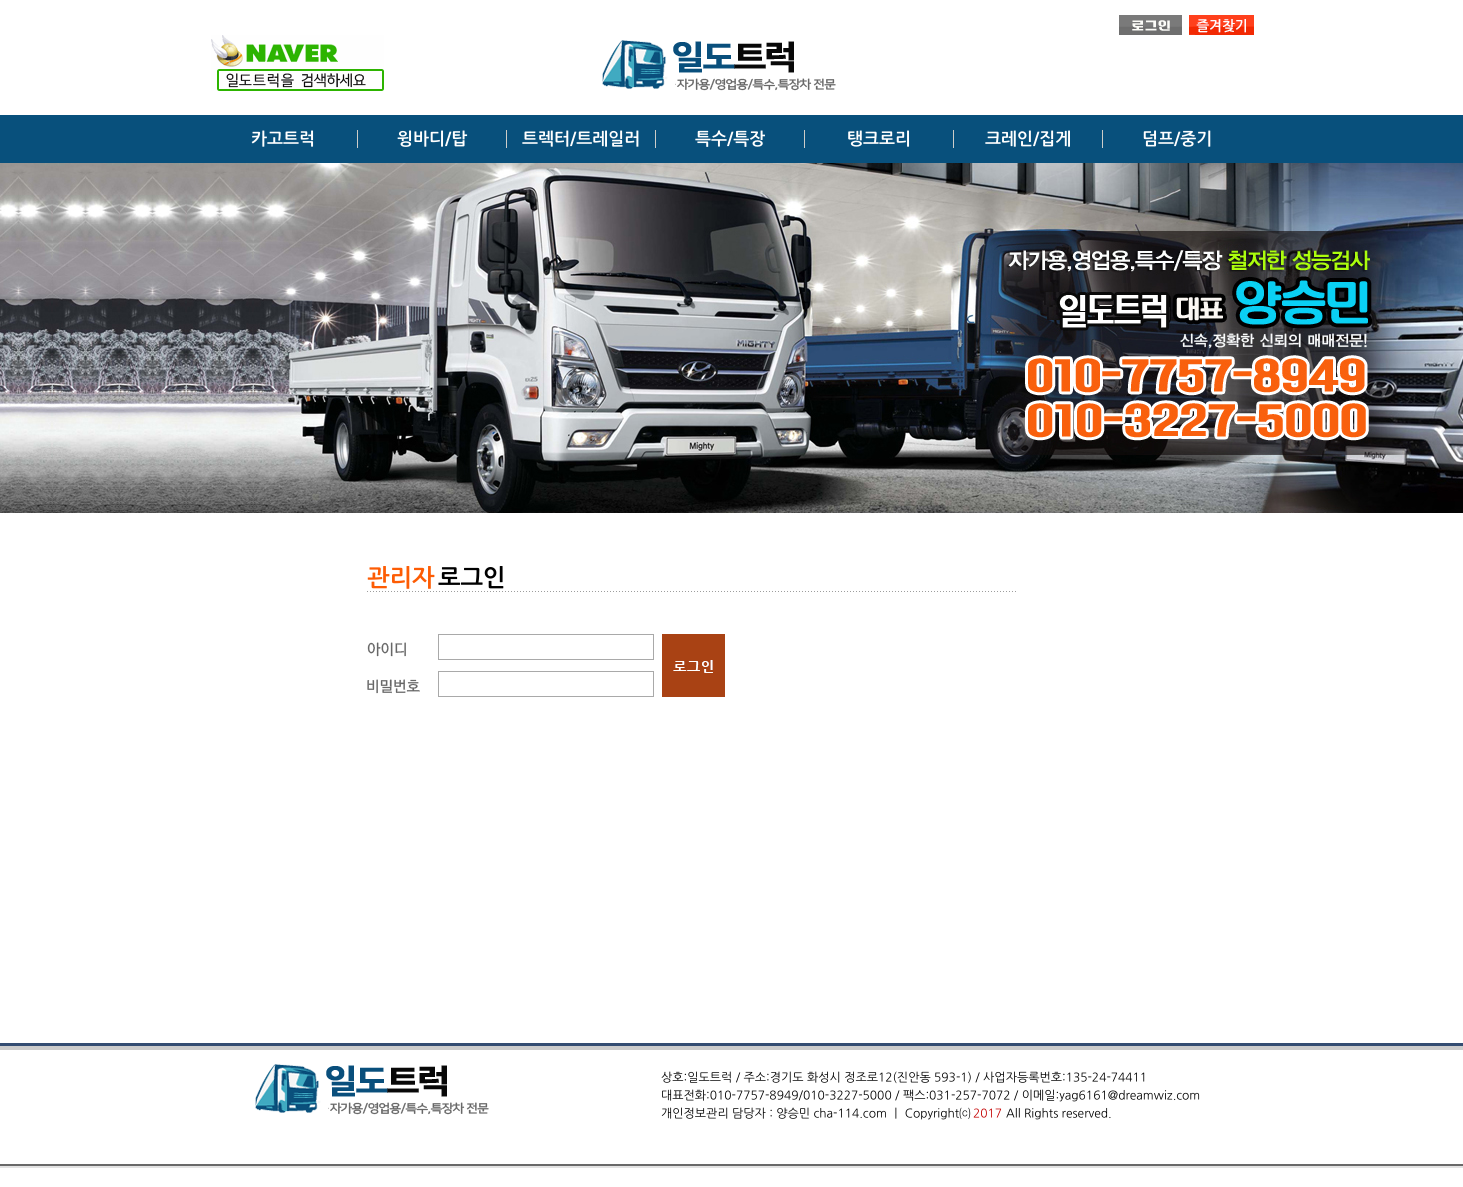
import math
import cairo

surface = cairo.ImageSurface(cairo.FORMAT_RGB24, 1463, 1187)
ctx = cairo.Context(surface)
options = cairo.FontOptions()
options.set_hint_metrics(cairo.HINT_METRICS_OFF)
options.set_hint_style(cairo.HINT_STYLE_NONE)
ctx.set_font_options(options)
ctx.set_miter_limit(4)


def picture(path, x, y, w, h):
    ctx.save()
    ctx.set_source_surface(cairo.ImageSurface.create_from_png(path), x, y)
    ctx.rectangle(x, y, w, h)
    ctx.fill()
    ctx.restore()


ctx.set_source_rgb(1, 1, 1)
ctx.paint()
ctx.set_source_rgb(0.035, 0.314, 0.486)
ctx.rectangle(0, 115, 1463, 48)
ctx.fill()
picture("img1.png", 1119, 15, 63, 20)
picture("img2.png", 1189, 15, 65, 20)
picture("img3.png", 211, 35, 173, 56)
picture("img4.png", 602, 40, 234, 51)
ctx.select_font_face("NanumGothic", cairo.FONT_SLANT_NORMAL, cairo.FONT_WEIGHT_BOLD)
ctx.set_font_size(17)
ctx.set_source_rgb(1, 1, 1)
ctx.move_to(251, 144)
ctx.show_text("카고트럭")
picture("img5.png", 357, 130, 1, 18)
ctx.move_to(397, 144)
ctx.show_text("윙바디/탑")
picture("img5.png", 506, 130, 1, 18)
ctx.move_to(522, 144)
ctx.show_text("트렉터/트레일러")
picture("img5.png", 655, 130, 1, 18)
ctx.move_to(695, 144)
ctx.show_text("특수/특장")
picture("img5.png", 804, 130, 1, 18)
ctx.move_to(847, 144)
ctx.show_text("탱크로리")
picture("img5.png", 953, 130, 1, 18)
ctx.move_to(985, 144)
ctx.show_text("크레인/집게")
picture("img5.png", 1102, 130, 1, 18)
ctx.move_to(1142, 144)
ctx.show_text("덤프/중기")
picture("img6.png", 0, 163, 1463, 350)
ctx.set_font_size(24)
ctx.set_source_rgb(0.992, 0.361, 0.016)
ctx.move_to(367, 585)
ctx.show_text("관리자")
ctx.set_source_rgb(0, 0, 0)
ctx.move_to(438, 585)
ctx.show_text("로그인")
picture("img7.png", 367, 591, 649, 1)
picture("img8.png", 367, 642, 39, 15)
picture("img9.png", 367, 679, 53, 15)
ctx.rectangle(438.5, 634.5, 215, 25)
ctx.set_source_rgb(0.663, 0.663, 0.663)
ctx.set_line_width(1)
ctx.stroke()
ctx.rectangle(438.5, 671.5, 215, 25)
ctx.stroke()
picture("img10.png", 662, 634, 63, 63)
picture("img11.png", 0, 1043, 1463, 125)
picture("img12.png", 255, 1064, 234, 51)
ctx.select_font_face("NanumGothic")
ctx.set_font_size(12)
ctx.set_source_rgb(0, 0, 0)
ctx.move_to(661, 1081)
ctx.show_text("상호:일도트럭 / 주소:경기도 화성시 정조로12(진안동 593-1) / 사업자등록번호:135-24-74411")
ctx.move_to(661, 1099)
ctx.show_text("대표전화:010-7757-8949/010-3227-5000 / 팩스:031-257-7072 / 이메일:yag6161@dreamwiz.com")
ctx.move_to(661, 1117)
ctx.show_text("개인정보관리 담당자 : 양승민 cha-114.com ㅣ Copyright⒞")
ctx.set_source_rgb(0.769, 0, 0)
ctx.move_to(973, 1117)
ctx.show_text("2017")
ctx.set_source_rgb(0, 0, 0)
ctx.move_to(1006, 1117)
ctx.show_text("All Rights reserved.")
surface.write_to_png("page.png")
